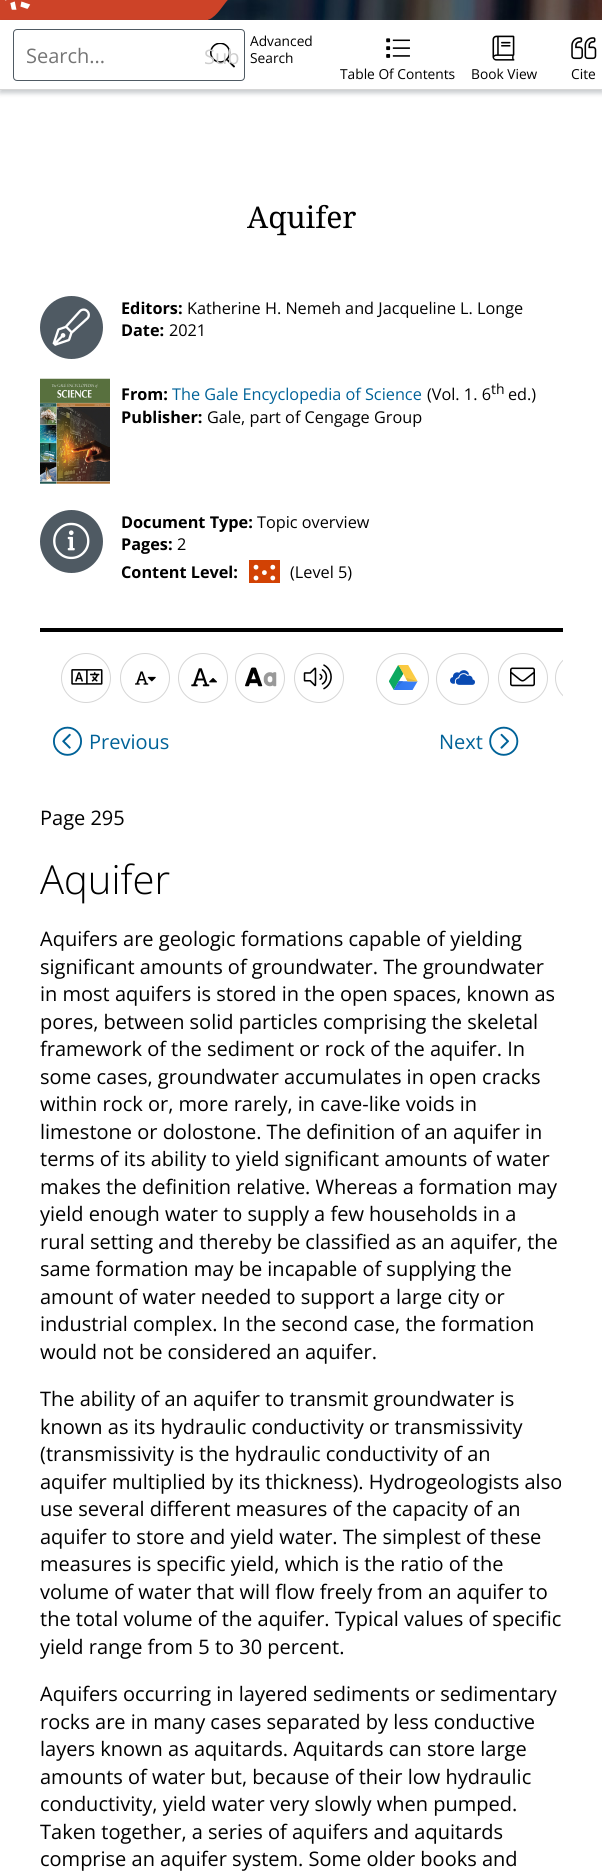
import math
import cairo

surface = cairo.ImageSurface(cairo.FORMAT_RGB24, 602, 1876)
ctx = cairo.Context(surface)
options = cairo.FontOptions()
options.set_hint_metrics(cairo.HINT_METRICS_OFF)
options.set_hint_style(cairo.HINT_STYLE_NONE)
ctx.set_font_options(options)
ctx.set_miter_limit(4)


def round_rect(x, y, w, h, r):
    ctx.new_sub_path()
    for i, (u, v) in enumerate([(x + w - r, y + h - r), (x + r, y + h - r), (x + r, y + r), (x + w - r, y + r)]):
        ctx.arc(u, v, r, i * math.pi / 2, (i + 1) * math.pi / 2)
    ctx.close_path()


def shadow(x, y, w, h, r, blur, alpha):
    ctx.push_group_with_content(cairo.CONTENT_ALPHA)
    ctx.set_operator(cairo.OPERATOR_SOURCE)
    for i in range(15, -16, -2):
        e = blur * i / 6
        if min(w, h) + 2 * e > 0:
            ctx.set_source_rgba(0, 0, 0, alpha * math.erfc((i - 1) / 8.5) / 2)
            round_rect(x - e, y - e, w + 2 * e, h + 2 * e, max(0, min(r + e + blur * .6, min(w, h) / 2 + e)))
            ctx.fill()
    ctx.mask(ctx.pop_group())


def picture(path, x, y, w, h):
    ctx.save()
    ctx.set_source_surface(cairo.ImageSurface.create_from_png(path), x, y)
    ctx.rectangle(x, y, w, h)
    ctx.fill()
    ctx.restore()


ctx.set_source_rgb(1, 1, 1)
ctx.paint()
picture("img1.png", 208, 0, 394, 20)
ctx.set_source_rgb(0.804, 0.263, 0.157)
ctx.new_path()
ctx.move_to(206, -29)
ctx.line_to(255, -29)
ctx.curve_to(248, -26, 244, -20, 240, -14)
ctx.line_to(226, 2)
ctx.curve_to(222, 7, 214, 20, 206, 20)
ctx.close_path()
ctx.fill()
ctx.rectangle(0, 0, 208, 20)
ctx.fill()
picture("img2.png", 5, 0, 26, 10)
ctx.save()
ctx.set_fill_rule(cairo.FILL_RULE_EVEN_ODD)
ctx.new_path()
ctx.move_to(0, 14)
ctx.line_to(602, 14)
ctx.line_to(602, 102)
ctx.line_to(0, 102)
ctx.close_path()
ctx.move_to(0, 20)
ctx.line_to(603, 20)
ctx.line_to(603, 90)
ctx.line_to(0, 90)
ctx.close_path()
ctx.clip()
ctx.set_source_rgb(0.31, 0.353, 0.388)
shadow(0, 23, 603, 70, 0, 2.5, 0.33)
ctx.restore()
ctx.set_source_rgb(0.839, 0.839, 0.839)
ctx.rectangle(0, 89, 602, 1)
ctx.fill()
round_rect(13.5, 29.5, 231, 51, 3.5)
ctx.set_source_rgb(0.31, 0.353, 0.388)
ctx.set_line_width(1)
ctx.stroke()
ctx.select_font_face("Open Sans")
ctx.set_font_size(20)
ctx.set_source_rgb(0.459, 0.459, 0.459)
ctx.move_to(26, 63)
ctx.show_text("Search...")
picture("img3.png", 210, 43, 25, 25)
ctx.set_source_rgb(0.804, 0.804, 0.804)
ctx.move_to(204, 64)
ctx.show_text("Sub")
ctx.set_font_size(13.75)
ctx.set_source_rgb(0, 0, 0)
ctx.move_to(250, 46)
ctx.show_text("Advanced")
ctx.move_to(250, 63)
ctx.show_text("Search")
picture("img4.png", 386, 38, 24, 20)
ctx.move_to(340, 79)
ctx.show_text("Table Of Contents")
picture("img5.png", 492, 35, 23, 26)
ctx.move_to(471, 79)
ctx.show_text("Book View")
picture("img6.png", 571, 37, 26, 23)
ctx.move_to(571, 79)
ctx.show_text("Cite")
ctx.select_font_face("Noto Serif")
ctx.set_font_size(30)
ctx.move_to(247, 228)
ctx.show_text("Aquifer")
ctx.set_source_rgb(0.31, 0.353, 0.388)
ctx.new_path()
ctx.arc(71.5, 327.5, 31.5, 0, 2 * math.pi)
ctx.fill()
picture("img7.png", 52, 308, 38, 38)
ctx.select_font_face("Open Sans", cairo.FONT_SLANT_NORMAL, cairo.FONT_WEIGHT_BOLD)
ctx.set_font_size(16.25)
ctx.set_source_rgb(0, 0, 0)
ctx.move_to(121, 314)
ctx.show_text("Editors:")
ctx.select_font_face("Open Sans")
ctx.move_to(187, 314)
ctx.show_text("Katherine H. Nemeh and Jacqueline L. Longe")
ctx.select_font_face("Open Sans", cairo.FONT_SLANT_NORMAL, cairo.FONT_WEIGHT_BOLD)
ctx.move_to(121, 336)
ctx.show_text("Date:")
ctx.select_font_face("Open Sans")
ctx.move_to(169, 336)
ctx.show_text("2021")
picture("img8.png", 40, 378, 70, 106)
ctx.select_font_face("Open Sans", cairo.FONT_SLANT_NORMAL, cairo.FONT_WEIGHT_BOLD)
ctx.move_to(121, 400)
ctx.show_text("From:")
ctx.select_font_face("Open Sans")
ctx.set_source_rgb(0, 0.384, 0.596)
ctx.move_to(172, 400)
ctx.show_text("The Gale Encyclopedia of Science")
ctx.set_source_rgb(0, 0, 0)
ctx.move_to(427, 400)
ctx.show_text("(Vol. 1. 6")
ctx.set_font_size(14)
ctx.move_to(491, 394)
ctx.show_text("th")
ctx.set_font_size(16.25)
ctx.move_to(508, 400)
ctx.show_text("ed.)")
ctx.select_font_face("Open Sans", cairo.FONT_SLANT_NORMAL, cairo.FONT_WEIGHT_BOLD)
ctx.move_to(121, 423)
ctx.show_text("Publisher:")
ctx.select_font_face("Open Sans")
ctx.move_to(207, 423)
ctx.show_text("Gale, part of Cengage Group")
ctx.set_source_rgb(0.31, 0.353, 0.388)
ctx.new_path()
ctx.arc(71.5, 541.5, 31.5, 0, 2 * math.pi)
ctx.fill()
picture("img9.png", 53, 522, 37, 38)
ctx.select_font_face("Open Sans", cairo.FONT_SLANT_NORMAL, cairo.FONT_WEIGHT_BOLD)
ctx.set_source_rgb(0, 0, 0)
ctx.move_to(121, 528)
ctx.show_text("Document Type:")
ctx.select_font_face("Open Sans")
ctx.move_to(257, 528)
ctx.show_text("Topic overview")
ctx.select_font_face("Open Sans", cairo.FONT_SLANT_NORMAL, cairo.FONT_WEIGHT_BOLD)
ctx.move_to(121, 550)
ctx.show_text("Pages:")
ctx.select_font_face("Open Sans")
ctx.move_to(177, 550)
ctx.show_text("2")
ctx.select_font_face("Open Sans", cairo.FONT_SLANT_NORMAL, cairo.FONT_WEIGHT_BOLD)
ctx.move_to(121, 578)
ctx.show_text("Content Level:")
ctx.set_source_rgb(0.824, 0.259, 0.016)
ctx.rectangle(249, 560, 31, 23)
ctx.fill()
ctx.set_source_rgb(1, 1, 1)
ctx.arc(256, 567.2, 2.4, 0, 2 * math.pi)
ctx.fill()
ctx.arc(272.8, 567.2, 2.4, 0, 2 * math.pi)
ctx.fill()
ctx.arc(264.4, 572.6, 2.4, 0, 2 * math.pi)
ctx.fill()
ctx.arc(272.8, 578, 2.4, 0, 2 * math.pi)
ctx.fill()
ctx.arc(256, 578, 2.4, 0, 2 * math.pi)
ctx.fill()
ctx.select_font_face("Open Sans")
ctx.set_source_rgb(0, 0, 0)
ctx.move_to(290, 578)
ctx.show_text("(Level 5)")
ctx.rectangle(40, 628, 523, 4)
ctx.fill()
ctx.arc(86, 678, 24.5, 0, 2 * math.pi)
ctx.set_source_rgb(0.839, 0.839, 0.839)
ctx.stroke()
picture("img10.png", 71, 669, 32, 16)
ctx.arc(145, 678, 24.5, 0, 2 * math.pi)
ctx.stroke()
picture("img11.png", 135, 671, 14, 14)
picture("img12.png", 147, 676, 9, 6)
ctx.arc(203, 678, 24.5, 0, 2 * math.pi)
ctx.stroke()
picture("img13.png", 191, 668, 19, 19)
picture("img14.png", 209, 678, 8, 5)
ctx.arc(260, 678, 24.5, 0, 2 * math.pi)
ctx.stroke()
picture("img15.png", 245, 667, 18, 20)
picture("img16.png", 263, 672, 14, 15)
ctx.arc(319, 678, 24.5, 0, 2 * math.pi)
ctx.stroke()
picture("img17.png", 303, 664, 29, 26)
round_rect(376.5, 653.5, 52, 51, 25.5)
ctx.stroke()
picture("img18.png", 389, 665, 29, 25)
round_rect(436.5, 653.5, 52, 51, 25.5)
ctx.stroke()
picture("img19.png", 450, 670, 25, 15)
ctx.arc(523, 678, 24.5, 0, 2 * math.pi)
ctx.stroke()
picture("img20.png", 510, 667, 25, 20)
ctx.save()
ctx.rectangle(40, 651, 523, 75)
ctx.clip()
ctx.arc(580, 678, 24.5, 0, 2 * math.pi)
ctx.stroke()
ctx.restore()
picture("img21.png", 53, 726, 29, 30)
ctx.set_font_size(20)
ctx.set_source_rgb(0, 0.384, 0.596)
ctx.move_to(89, 749)
ctx.show_text("Previous")
ctx.move_to(439, 749)
ctx.show_text("Next")
picture("img22.png", 489, 726, 30, 30)
ctx.set_source_rgb(0, 0, 0)
ctx.move_to(40, 825)
ctx.show_text("Page 295")
ctx.select_font_face("Open Sans Light")
ctx.set_font_size(40)
ctx.move_to(40, 894)
ctx.show_text("Aquifer")
ctx.select_font_face("Open Sans")
ctx.set_font_size(20)
ctx.move_to(40, 946)
ctx.show_text("Aquifers are geologic formations capable of yielding")
ctx.move_to(40, 974)
ctx.show_text("significant amounts of groundwater. The groundwater")
ctx.move_to(40, 1001)
ctx.show_text("in most aquifers is stored in the open spaces, known as")
ctx.move_to(40, 1029)
ctx.show_text("pores, between solid particles comprising the skeletal")
ctx.move_to(40, 1056)
ctx.show_text("framework of the sediment or rock of the aquifer. In")
ctx.move_to(40, 1084)
ctx.show_text("some cases, groundwater accumulates in open cracks")
ctx.move_to(40, 1111)
ctx.show_text("within rock or, more rarely, in cave-like voids in")
ctx.move_to(40, 1139)
ctx.show_text("limestone or dolostone. The definition of an aquifer in")
ctx.move_to(40, 1166)
ctx.show_text("terms of its ability to yield significant amounts of water")
ctx.move_to(40, 1194)
ctx.show_text("makes the definition relative. Whereas a formation may")
ctx.move_to(40, 1221)
ctx.show_text("yield enough water to supply a few households in a")
ctx.move_to(40, 1249)
ctx.show_text("rural setting and thereby be classified as an aquifer, the")
ctx.move_to(40, 1276)
ctx.show_text("same formation may be incapable of supplying the")
ctx.move_to(40, 1304)
ctx.show_text("amount of water needed to support a large city or")
ctx.move_to(40, 1331)
ctx.show_text("industrial complex. In the second case, the formation")
ctx.move_to(40, 1359)
ctx.show_text("would not be considered an aquifer.")
ctx.move_to(40, 1406)
ctx.show_text("The ability of an aquifer to transmit groundwater is")
ctx.move_to(40, 1434)
ctx.show_text("known as its hydraulic conductivity or transmissivity")
ctx.move_to(40, 1461)
ctx.show_text("(transmissivity is the hydraulic conductivity of an")
ctx.move_to(40, 1489)
ctx.show_text("aquifer multiplied by its thickness). Hydrogeologists also")
ctx.move_to(40, 1516)
ctx.show_text("use several different measures of the capacity of an")
ctx.move_to(40, 1544)
ctx.show_text("aquifer to store and yield water. The simplest of these")
ctx.move_to(40, 1571)
ctx.show_text("measures is specific yield, which is the ratio of the")
ctx.move_to(40, 1599)
ctx.show_text("volume of water that will flow freely from an aquifer to")
ctx.move_to(40, 1626)
ctx.show_text("the total volume of the aquifer. Typical values of specific")
ctx.move_to(40, 1654)
ctx.show_text("yield range from 5 to 30 percent.")
ctx.move_to(40, 1701)
ctx.show_text("Aquifers occurring in layered sediments or sedimentary")
ctx.move_to(40, 1729)
ctx.show_text("rocks are in many cases separated by less conductive")
ctx.move_to(40, 1756)
ctx.show_text("layers known as aquitards. Aquitards can store large")
ctx.move_to(40, 1784)
ctx.show_text("amounts of water but, because of their low hydraulic")
ctx.move_to(40, 1811)
ctx.show_text("conductivity, yield water very slowly when pumped.")
ctx.move_to(40, 1839)
ctx.show_text("Taken together, a series of aquifers and aquitards")
ctx.move_to(40, 1866)
ctx.show_text("comprise an aquifer system. Some older books and")
surface.write_to_png("page.png")
